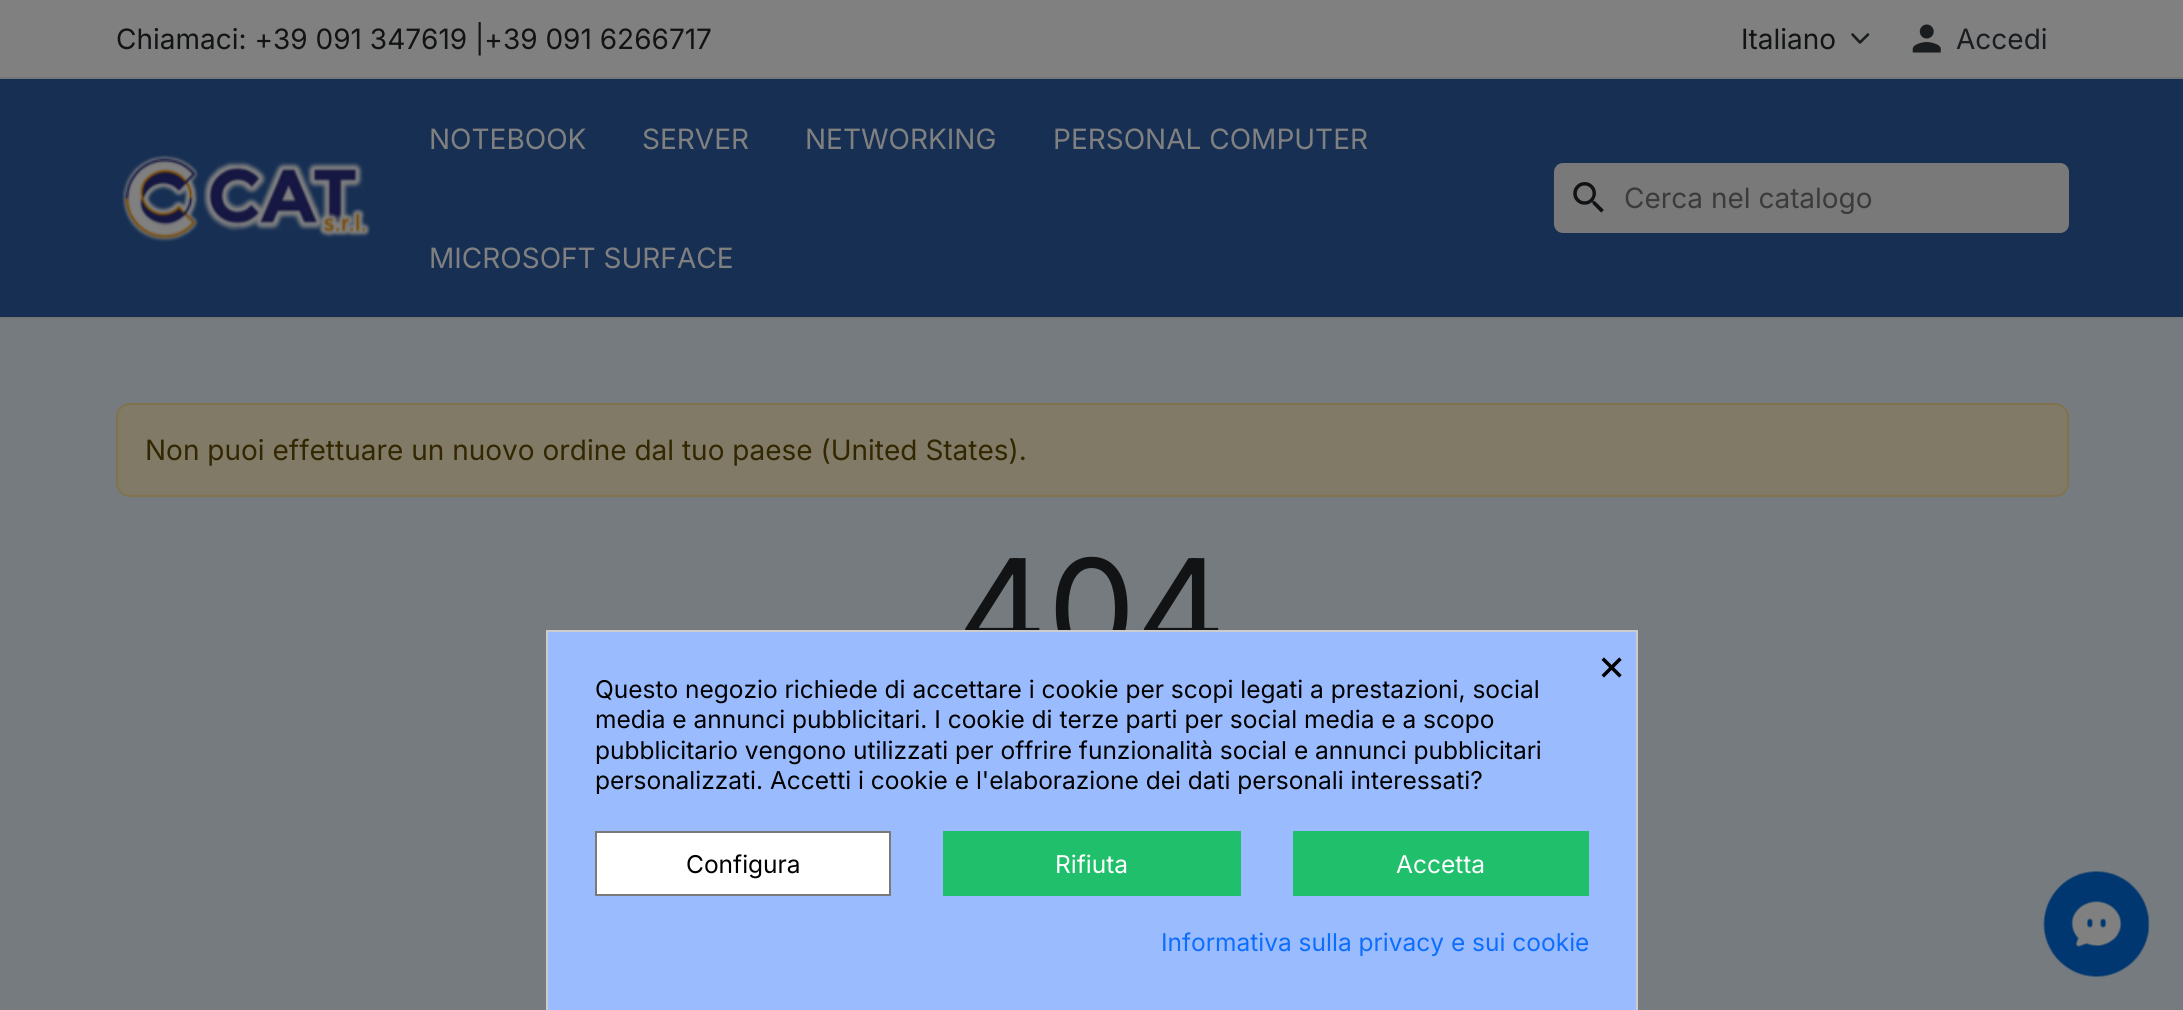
import math
import cairo

surface = cairo.ImageSurface(cairo.FORMAT_RGB24, 2183, 1010)
ctx = cairo.Context(surface)
options = cairo.FontOptions()
options.set_hint_metrics(cairo.HINT_METRICS_OFF)
options.set_hint_style(cairo.HINT_STYLE_NONE)
ctx.set_font_options(options)
ctx.set_miter_limit(4)


def round_rect(x, y, w, h, r):
    ctx.new_sub_path()
    for i, (u, v) in enumerate([(x + w - r, y + h - r), (x + r, y + h - r), (x + r, y + r), (x + w - r, y + r)]):
        ctx.arc(u, v, r, i * math.pi / 2, (i + 1) * math.pi / 2)
    ctx.close_path()


def picture(path, x, y, w, h):
    ctx.save()
    ctx.set_source_surface(cairo.ImageSurface.create_from_png(path), x, y)
    ctx.rectangle(x, y, w, h)
    ctx.fill()
    ctx.restore()


ctx.set_source_rgb(0.459, 0.482, 0.498)
ctx.paint()
ctx.set_source_rgb(0.086, 0.184, 0.325)
ctx.rectangle(0, 79, 2183, 238)
ctx.fill()
ctx.set_source_rgb(0.502, 0.502, 0.502)
ctx.rectangle(0, 0, 2183, 77)
ctx.fill()
ctx.set_source_rgb(0.459, 0.463, 0.471)
ctx.rectangle(0, 77, 2183, 2)
ctx.fill()
ctx.select_font_face("Inter")
ctx.set_font_size(28)
ctx.set_source_rgb(0.067, 0.075, 0.082)
ctx.move_to(116, 49)
ctx.show_text("Chiamaci: +39 091 347619 |+39 091 6266717")
ctx.new_path()
ctx.move_to(1852.5, 34.5)
ctx.line_to(1860, 42.5)
ctx.line_to(1868, 34.5)
ctx.set_source_rgb(0.102, 0.114, 0.125)
ctx.set_line_width(2.6)
ctx.set_line_cap(cairo.LINE_CAP_ROUND)
ctx.set_line_join(cairo.LINE_JOIN_ROUND)
ctx.stroke()
ctx.set_source_rgb(0.067, 0.075, 0.082)
ctx.move_to(1741, 49)
ctx.show_text("Italiano")
picture("img1.png", 1912, 24, 29, 29)
ctx.set_source_rgb(0.102, 0.114, 0.125)
ctx.move_to(1956, 49)
ctx.show_text("Accedi")
ctx.set_source_rgb(0.459, 0.463, 0.471)
ctx.rectangle(0, 317, 2183, 2)
ctx.fill()
picture("img2.png", 122, 155, 249, 87)
ctx.set_source_rgb(0.502, 0.502, 0.502)
ctx.move_to(429, 149)
ctx.show_text("NOTEBOOK")
ctx.move_to(642, 149)
ctx.show_text("SERVER")
ctx.move_to(805, 149)
ctx.show_text("NETWORKING")
ctx.move_to(1053, 149)
ctx.show_text("PERSONAL COMPUTER")
ctx.move_to(429, 268)
ctx.show_text("MICROSOFT SURFACE")
ctx.set_source_rgb(0.475, 0.475, 0.475)
round_rect(1554, 163, 515, 70, 9)
ctx.fill()
picture("img3.png", 1573, 182, 31, 31)
ctx.set_source_rgb(0.231, 0.231, 0.231)
ctx.move_to(1624, 208)
ctx.show_text("Cerca nel catalogo")
ctx.set_source_rgb(0.502, 0.478, 0.404)
round_rect(117, 404, 1951, 92, 13)
ctx.fill_preserve()
ctx.set_source_rgb(0.502, 0.451, 0.306)
ctx.set_line_width(2)
ctx.set_line_cap(cairo.LINE_CAP_BUTT)
ctx.set_line_join(cairo.LINE_JOIN_MITER)
ctx.stroke()
ctx.set_source_rgb(0.2, 0.153, 0.008)
ctx.move_to(145, 460)
ctx.show_text("Non puoi effettuare un nuovo ordine dal tuo paese (United States).")
ctx.set_font_size(140)
ctx.set_source_rgb(0.067, 0.075, 0.082)
ctx.move_to(957, 660)
ctx.show_text("404")
ctx.set_source_rgb(0.604, 0.737, 1)
ctx.rectangle(547, 631, 1090, 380)
ctx.fill_preserve()
ctx.set_source_rgb(0.8, 0.8, 0.8)
ctx.stroke()
ctx.set_font_size(44)
ctx.set_source_rgb(0, 0, 0)
ctx.move_to(1597, 680)
ctx.show_text("×")
ctx.set_font_size(24.5)
ctx.move_to(595, 698)
ctx.show_text("Questo negozio richiede di accettare i cookie per scopi legati a prestazioni, social")
ctx.move_to(595, 728)
ctx.show_text("media e annunci pubblicitari. I cookie di terze parti per social media e a scopo")
ctx.move_to(595, 759)
ctx.show_text("pubblicitario vengono utilizzati per offrire funzionalità social e annunci pubblicitari")
ctx.move_to(595, 789)
ctx.show_text("personalizzati. Accetti i cookie e l'elaborazione dei dati personali interessati?")
ctx.set_source_rgb(1, 1, 1)
ctx.rectangle(596, 832, 294, 63)
ctx.fill_preserve()
ctx.set_source_rgb(0.478, 0.478, 0.478)
ctx.stroke()
ctx.set_source_rgb(0, 0, 0)
ctx.move_to(686, 873)
ctx.show_text("Configura")
ctx.set_source_rgb(0.125, 0.749, 0.42)
ctx.rectangle(943, 831, 298, 65)
ctx.fill()
ctx.set_source_rgb(1, 1, 1)
ctx.move_to(1055, 873)
ctx.show_text("Rifiuta")
ctx.set_source_rgb(0.125, 0.749, 0.42)
ctx.rectangle(1293, 831, 296, 65)
ctx.fill()
ctx.set_source_rgb(1, 1, 1)
ctx.move_to(1396, 873)
ctx.show_text("Accetta")
ctx.set_source_rgb(0.051, 0.431, 0.992)
ctx.move_to(1161, 951)
ctx.show_text("Informativa sulla privacy e sui cookie")
picture("img4.png", 2043, 871, 107, 106)
surface.write_to_png("page.png")
